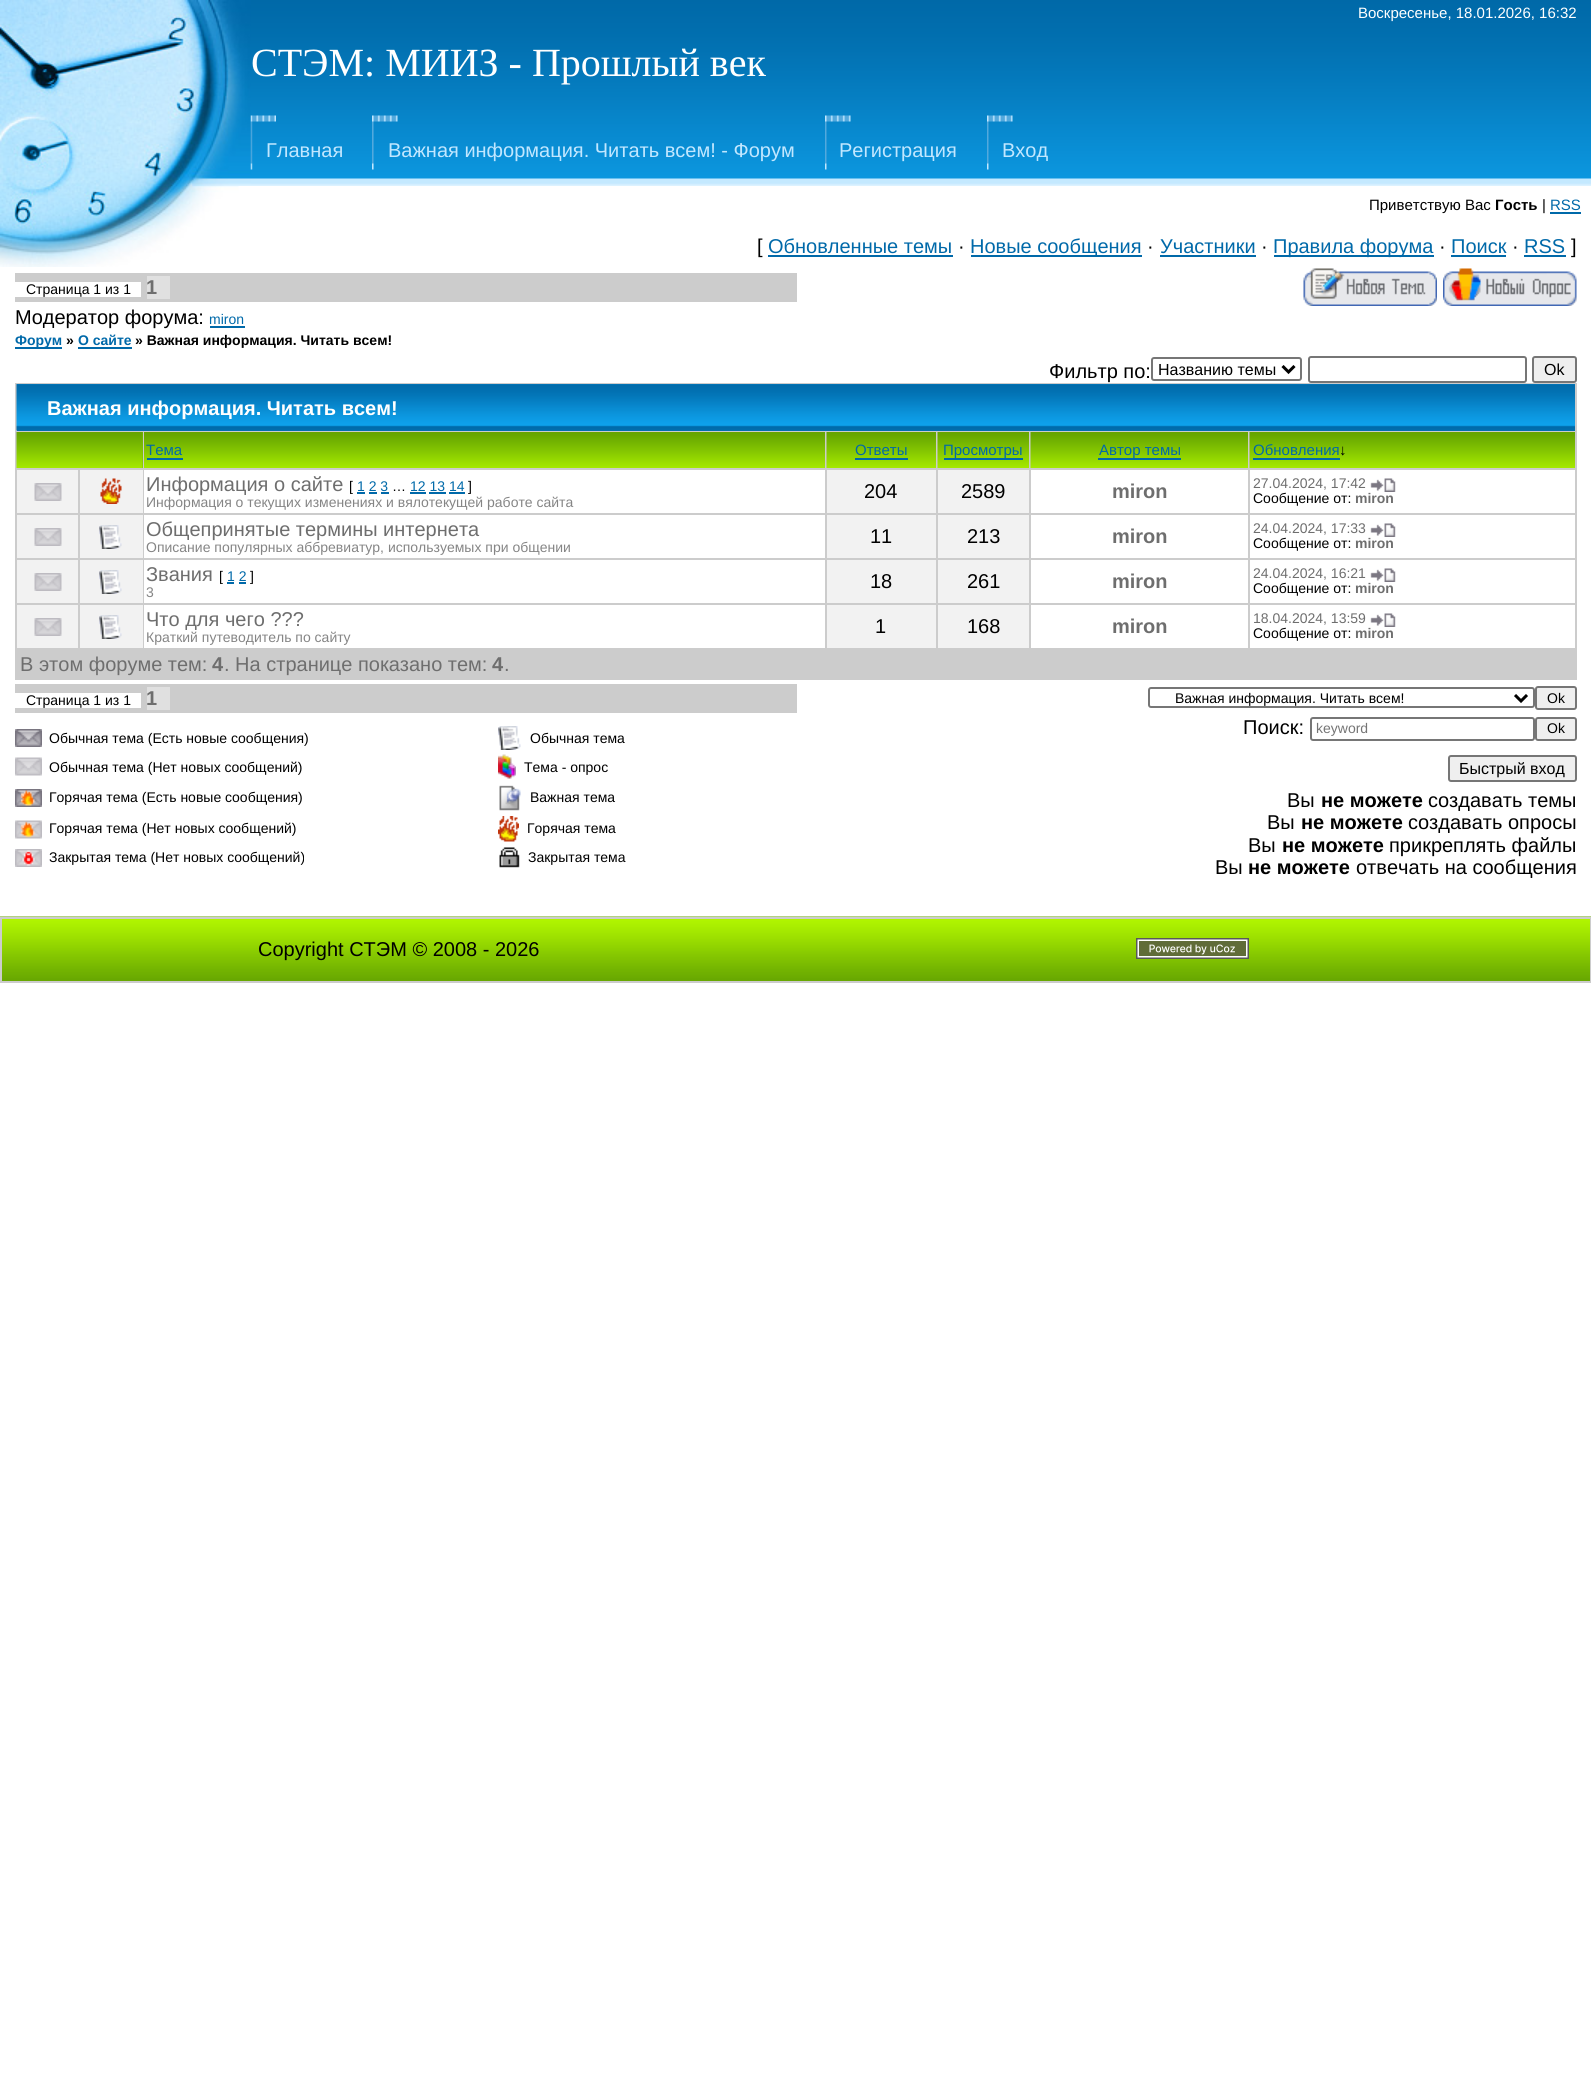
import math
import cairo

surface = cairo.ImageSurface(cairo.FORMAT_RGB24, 1591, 2083)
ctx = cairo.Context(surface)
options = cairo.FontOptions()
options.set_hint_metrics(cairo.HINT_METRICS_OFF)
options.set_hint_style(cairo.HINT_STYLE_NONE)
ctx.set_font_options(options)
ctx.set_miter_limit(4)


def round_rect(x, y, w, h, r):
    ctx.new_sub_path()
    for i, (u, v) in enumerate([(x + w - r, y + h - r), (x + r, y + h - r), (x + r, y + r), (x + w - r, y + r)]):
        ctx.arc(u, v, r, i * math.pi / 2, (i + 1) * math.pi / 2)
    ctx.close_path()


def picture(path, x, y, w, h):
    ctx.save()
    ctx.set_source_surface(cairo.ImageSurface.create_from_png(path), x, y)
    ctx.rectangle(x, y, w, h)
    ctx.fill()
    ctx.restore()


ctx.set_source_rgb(1, 1, 1)
ctx.paint()
picture("img1.png", 0, 186, 239, 81)
picture("img2.png", 250, 0, 1341, 186)
picture("img4.png", 250, 115, 26, 55)
picture("img3.png", 0, 0, 251, 186)
ctx.select_font_face("Liberation Sans")
ctx.set_font_size(15)
ctx.set_source_rgb(1, 1, 1)
ctx.move_to(1358, 18)
ctx.show_text("Воскресенье, 18.01.2026, 16:32")
ctx.select_font_face("Liberation Serif")
ctx.set_font_size(40)
ctx.move_to(251, 76)
ctx.show_text("СТЭМ: МИИЗ - Прошлый век")
ctx.select_font_face("Liberation Sans")
ctx.set_font_size(20)
ctx.set_source_rgb(0.757, 0.906, 1)
ctx.move_to(266, 157)
ctx.show_text("Главная")
picture("img5.png", 372, 115, 26, 55)
ctx.move_to(388, 157)
ctx.show_text("Важная информация. Читать всем! - Форум")
picture("img6.png", 825, 115, 26, 55)
ctx.move_to(839, 157)
ctx.show_text("Регистрация")
picture("img6.png", 987, 115, 26, 55)
ctx.move_to(1002, 157)
ctx.show_text("Вход")
ctx.set_font_size(15)
ctx.set_source_rgb(0, 0, 0)
ctx.move_to(1369, 210)
ctx.show_text("Приветствую Вас")
ctx.select_font_face("Liberation Sans", cairo.FONT_SLANT_NORMAL, cairo.FONT_WEIGHT_BOLD)
ctx.move_to(1495, 210)
ctx.show_text("Гость")
ctx.select_font_face("Liberation Sans")
ctx.move_to(1542, 210)
ctx.show_text("|")
ctx.set_source_rgb(0, 0.412, 0.663)
ctx.move_to(1550, 210)
ctx.show_text("RSS")
ctx.rectangle(1550, 212, 31, 2)
ctx.fill()
ctx.set_font_size(20)
ctx.set_source_rgb(0, 0, 0)
ctx.move_to(757, 253)
ctx.show_text("[")
ctx.set_source_rgb(0, 0.412, 0.663)
ctx.move_to(768, 253)
ctx.show_text("Обновленные темы")
ctx.rectangle(768, 255, 185, 2)
ctx.fill()
ctx.set_source_rgb(0, 0, 0)
ctx.move_to(958, 253)
ctx.show_text("·")
ctx.set_source_rgb(0, 0.412, 0.663)
ctx.rectangle(971, 255, 171, 2)
ctx.fill()
ctx.move_to(970, 253)
ctx.show_text("Новые сообщения")
ctx.set_source_rgb(0, 0, 0)
ctx.move_to(1147, 253)
ctx.show_text("·")
ctx.set_source_rgb(0, 0.412, 0.663)
ctx.move_to(1160, 253)
ctx.show_text("Участники")
ctx.rectangle(1160, 255, 96, 2)
ctx.fill()
ctx.set_source_rgb(0, 0, 0)
ctx.move_to(1261, 253)
ctx.show_text("·")
ctx.set_source_rgb(0, 0.412, 0.663)
ctx.rectangle(1274, 255, 160, 2)
ctx.fill()
ctx.move_to(1273, 253)
ctx.show_text("Правила форума")
ctx.set_source_rgb(0, 0, 0)
ctx.move_to(1439, 253)
ctx.show_text("·")
ctx.set_source_rgb(0, 0.412, 0.663)
ctx.move_to(1451, 253)
ctx.show_text("Поиск")
ctx.rectangle(1451, 255, 55, 2)
ctx.fill()
ctx.set_source_rgb(0, 0, 0)
ctx.move_to(1512, 253)
ctx.show_text("·")
ctx.set_source_rgb(0, 0.412, 0.663)
ctx.move_to(1524, 253)
ctx.show_text("RSS")
ctx.rectangle(1524, 255, 42, 2)
ctx.fill()
ctx.set_source_rgb(0, 0, 0)
ctx.move_to(1571, 253)
ctx.show_text("]")
ctx.set_source_rgb(0.8, 0.8, 0.8)
ctx.rectangle(15, 273, 782, 29)
ctx.fill()
ctx.set_source_rgb(1, 1, 1)
ctx.rectangle(15, 282, 126, 15)
ctx.fill()
ctx.set_font_size(14)
ctx.set_source_rgb(0, 0, 0)
ctx.move_to(26, 294)
ctx.show_text("Страница 1 из 1")
ctx.set_source_rgb(0.878, 0.878, 0.878)
ctx.rectangle(147, 276, 23, 23)
ctx.fill()
ctx.select_font_face("Liberation Sans", cairo.FONT_SLANT_NORMAL, cairo.FONT_WEIGHT_BOLD)
ctx.set_font_size(20)
ctx.set_source_rgb(0.431, 0.431, 0.431)
ctx.move_to(146, 294)
ctx.show_text("1")
picture("img7.png", 1303, 268, 134, 38)
picture("img8.png", 1443, 268, 134, 38)
ctx.select_font_face("Liberation Sans")
ctx.set_source_rgb(0, 0, 0)
ctx.move_to(15, 324)
ctx.show_text("Модератор форума:")
ctx.set_font_size(14)
ctx.set_source_rgb(0, 0.412, 0.663)
ctx.move_to(209, 324)
ctx.show_text("miron")
ctx.rectangle(210, 326, 35, 2)
ctx.fill()
ctx.rectangle(15, 347, 47, 2)
ctx.fill()
ctx.select_font_face("Liberation Sans", cairo.FONT_SLANT_NORMAL, cairo.FONT_WEIGHT_BOLD)
ctx.move_to(15, 345)
ctx.show_text("Форум")
ctx.set_source_rgb(0, 0, 0)
ctx.move_to(66, 345)
ctx.show_text("»")
ctx.set_source_rgb(0, 0.412, 0.663)
ctx.move_to(78, 345)
ctx.show_text("О сайте")
ctx.rectangle(78, 347, 54, 2)
ctx.fill()
ctx.set_source_rgb(0, 0, 0)
ctx.move_to(135, 345)
ctx.show_text("» Важная информация. Читать всем!")
ctx.select_font_face("Liberation Sans")
ctx.set_font_size(20)
ctx.move_to(1049, 378)
ctx.show_text("Фильтр по:")
round_rect(1152, 358, 149, 22, 2)
ctx.set_source_rgb(0.463, 0.463, 0.463)
ctx.stroke()
ctx.new_path()
ctx.move_to(1282.5, 366)
ctx.line_to(1288.5, 372)
ctx.line_to(1294.5, 366)
ctx.set_source_rgb(0, 0, 0)
ctx.set_line_width(3)
ctx.stroke()
ctx.set_font_size(16)
ctx.move_to(1158, 375)
ctx.show_text("Названию темы")
round_rect(1309, 357, 217, 25, 2)
ctx.set_source_rgb(0.463, 0.463, 0.463)
ctx.set_line_width(2)
ctx.stroke()
ctx.set_source_rgb(0.937, 0.937, 0.937)
round_rect(1533, 357, 43, 25, 2)
ctx.fill_preserve()
ctx.set_source_rgb(0.463, 0.463, 0.463)
ctx.stroke()
ctx.set_source_rgb(0, 0, 0)
ctx.move_to(1544, 375)
ctx.show_text("Ok")
ctx.set_source_rgb(0.8, 0.8, 0.8)
ctx.rectangle(15, 383, 1562, 297)
ctx.fill()
ctx.set_source_rgb(0.008, 0.451, 0.706)
ctx.rectangle(17, 430, 1558, 1)
ctx.fill()
picture("img9.png", 16, 384, 1559, 47)
ctx.select_font_face("Liberation Sans", cairo.FONT_SLANT_NORMAL, cairo.FONT_WEIGHT_BOLD)
ctx.set_font_size(20)
ctx.set_source_rgb(1, 1, 1)
ctx.move_to(47, 415)
ctx.show_text("Важная информация. Читать всем!")
ctx.set_source_rgb(0.486, 0.741, 0.004)
ctx.rectangle(142, 432, 1, 36)
ctx.fill()
picture("img10.png", 16, 432, 127, 36)
picture("img11.png", 144, 432, 681, 36)
ctx.select_font_face("Liberation Sans")
ctx.set_font_size(15)
ctx.set_source_rgb(0, 0.412, 0.663)
ctx.move_to(146, 455)
ctx.show_text("Тема")
ctx.rectangle(147, 458, 36, 2)
ctx.fill()
picture("img12.png", 826, 432, 110, 36)
ctx.move_to(855, 455)
ctx.show_text("Ответы")
ctx.rectangle(855, 458, 53, 2)
ctx.fill()
picture("img13.png", 937, 432, 92, 36)
ctx.rectangle(944, 458, 79, 2)
ctx.fill()
ctx.move_to(943, 455)
ctx.show_text("Просмотры")
picture("img14.png", 1030, 432, 218, 36)
ctx.rectangle(1098, 458, 83, 2)
ctx.fill()
ctx.move_to(1099, 455)
ctx.show_text("Автор темы")
picture("img15.png", 1249, 432, 326, 36)
ctx.move_to(1253, 455)
ctx.show_text("Обновления")
ctx.rectangle(1253, 458, 87, 2)
ctx.fill()
ctx.set_source_rgb(0, 0, 0)
ctx.move_to(1339, 455)
ctx.show_text("↓")
ctx.set_source_rgb(0.949, 0.949, 0.949)
ctx.rectangle(17, 470, 61, 43)
ctx.fill()
picture("img16.png", 34, 483, 28, 18)
ctx.rectangle(80, 470, 63, 43)
ctx.fill()
picture("img17.png", 100, 478, 22, 26)
ctx.set_source_rgb(1, 1, 1)
ctx.rectangle(144, 470, 681, 43)
ctx.fill()
ctx.set_font_size(20)
ctx.set_source_rgb(0.431, 0.431, 0.431)
ctx.move_to(146, 491)
ctx.show_text("Информация о сайте")
ctx.set_font_size(14)
ctx.set_source_rgb(0, 0, 0)
ctx.move_to(349, 491)
ctx.show_text("[")
ctx.set_source_rgb(0, 0.412, 0.663)
ctx.move_to(357, 491)
ctx.show_text("1 2 3")
ctx.rectangle(357, 492, 8, 2)
ctx.fill()
ctx.rectangle(369, 492, 8, 2)
ctx.fill()
ctx.set_source_rgb(0, 0, 0)
ctx.move_to(392, 491)
ctx.show_text("…")
ctx.set_source_rgb(0, 0.412, 0.663)
ctx.rectangle(381, 492, 8, 2)
ctx.fill()
ctx.rectangle(410, 492, 16, 2)
ctx.fill()
ctx.move_to(410, 491)
ctx.show_text("12 13 14")
ctx.rectangle(429, 492, 17, 2)
ctx.fill()
ctx.rectangle(449, 492, 16, 2)
ctx.fill()
ctx.set_source_rgb(0, 0, 0)
ctx.move_to(468, 491)
ctx.show_text("]")
ctx.set_source_rgb(0.522, 0.522, 0.522)
ctx.move_to(146, 507)
ctx.show_text("Информация о текущих изменениях и вялотекущей работе сайта")
ctx.set_source_rgb(0.949, 0.949, 0.949)
ctx.rectangle(827, 470, 109, 43)
ctx.fill()
ctx.set_font_size(20)
ctx.set_source_rgb(0, 0, 0)
ctx.move_to(864, 498)
ctx.show_text("204")
ctx.set_source_rgb(0.949, 0.949, 0.949)
ctx.rectangle(938, 470, 91, 43)
ctx.fill()
ctx.set_source_rgb(0, 0, 0)
ctx.move_to(961, 498)
ctx.show_text("2589")
ctx.set_source_rgb(1, 1, 1)
ctx.rectangle(1031, 470, 217, 43)
ctx.fill()
ctx.select_font_face("Liberation Sans", cairo.FONT_SLANT_NORMAL, cairo.FONT_WEIGHT_BOLD)
ctx.set_source_rgb(0.431, 0.431, 0.431)
ctx.move_to(1112, 498)
ctx.show_text("miron")
ctx.set_source_rgb(1, 1, 1)
ctx.rectangle(1250, 470, 325, 43)
ctx.fill()
ctx.select_font_face("Liberation Sans")
ctx.set_font_size(14)
ctx.set_source_rgb(0.431, 0.431, 0.431)
ctx.move_to(1253, 488)
ctx.show_text("27.04.2024, 17:42")
picture("img18.png", 1370, 478, 26, 14)
ctx.set_source_rgb(0, 0, 0)
ctx.move_to(1253, 503)
ctx.show_text("Сообщение от:")
ctx.select_font_face("Liberation Sans", cairo.FONT_SLANT_NORMAL, cairo.FONT_WEIGHT_BOLD)
ctx.set_source_rgb(0.431, 0.431, 0.431)
ctx.move_to(1355, 503)
ctx.show_text("miron")
ctx.set_source_rgb(0.949, 0.949, 0.949)
ctx.rectangle(17, 515, 61, 43)
ctx.fill()
picture("img16.png", 34, 528, 28, 18)
ctx.rectangle(80, 515, 63, 43)
ctx.fill()
picture("img19.png", 99, 525, 23, 24)
ctx.set_source_rgb(1, 1, 1)
ctx.rectangle(144, 515, 681, 43)
ctx.fill()
ctx.select_font_face("Liberation Sans")
ctx.set_font_size(20)
ctx.set_source_rgb(0.431, 0.431, 0.431)
ctx.move_to(146, 536)
ctx.show_text("Общепринятые термины интернета")
ctx.set_font_size(14)
ctx.set_source_rgb(0.522, 0.522, 0.522)
ctx.move_to(146, 552)
ctx.show_text("Описание популярных аббревиатур, используемых при общении")
ctx.set_source_rgb(0.949, 0.949, 0.949)
ctx.rectangle(827, 515, 109, 43)
ctx.fill()
ctx.set_font_size(20)
ctx.set_source_rgb(0, 0, 0)
ctx.move_to(870, 543)
ctx.show_text("11")
ctx.set_source_rgb(0.949, 0.949, 0.949)
ctx.rectangle(938, 515, 91, 43)
ctx.fill()
ctx.set_source_rgb(0, 0, 0)
ctx.move_to(967, 543)
ctx.show_text("213")
ctx.set_source_rgb(1, 1, 1)
ctx.rectangle(1031, 515, 217, 43)
ctx.fill()
ctx.select_font_face("Liberation Sans", cairo.FONT_SLANT_NORMAL, cairo.FONT_WEIGHT_BOLD)
ctx.set_source_rgb(0.431, 0.431, 0.431)
ctx.move_to(1112, 543)
ctx.show_text("miron")
ctx.set_source_rgb(1, 1, 1)
ctx.rectangle(1250, 515, 325, 43)
ctx.fill()
ctx.select_font_face("Liberation Sans")
ctx.set_font_size(14)
ctx.set_source_rgb(0.431, 0.431, 0.431)
ctx.move_to(1253, 533)
ctx.show_text("24.04.2024, 17:33")
picture("img18.png", 1370, 523, 26, 14)
ctx.set_source_rgb(0, 0, 0)
ctx.move_to(1253, 548)
ctx.show_text("Сообщение от:")
ctx.select_font_face("Liberation Sans", cairo.FONT_SLANT_NORMAL, cairo.FONT_WEIGHT_BOLD)
ctx.set_source_rgb(0.431, 0.431, 0.431)
ctx.move_to(1355, 548)
ctx.show_text("miron")
ctx.set_source_rgb(0.949, 0.949, 0.949)
ctx.rectangle(17, 560, 61, 43)
ctx.fill()
picture("img16.png", 34, 573, 28, 18)
ctx.rectangle(80, 560, 63, 43)
ctx.fill()
picture("img19.png", 99, 570, 23, 24)
ctx.set_source_rgb(1, 1, 1)
ctx.rectangle(144, 560, 681, 43)
ctx.fill()
ctx.select_font_face("Liberation Sans")
ctx.set_font_size(20)
ctx.set_source_rgb(0.431, 0.431, 0.431)
ctx.move_to(146, 581)
ctx.show_text("Звания")
ctx.set_font_size(14)
ctx.set_source_rgb(0, 0, 0)
ctx.move_to(219, 581)
ctx.show_text("[")
ctx.set_source_rgb(0, 0.412, 0.663)
ctx.move_to(227, 581)
ctx.show_text("1 2")
ctx.rectangle(227, 582, 7, 2)
ctx.fill()
ctx.rectangle(239, 582, 7, 2)
ctx.fill()
ctx.set_source_rgb(0, 0, 0)
ctx.move_to(250, 581)
ctx.show_text("]")
ctx.set_source_rgb(0.522, 0.522, 0.522)
ctx.move_to(146, 597)
ctx.show_text("3")
ctx.set_source_rgb(0.949, 0.949, 0.949)
ctx.rectangle(827, 560, 109, 43)
ctx.fill()
ctx.set_font_size(20)
ctx.set_source_rgb(0, 0, 0)
ctx.move_to(870, 588)
ctx.show_text("18")
ctx.set_source_rgb(0.949, 0.949, 0.949)
ctx.rectangle(938, 560, 91, 43)
ctx.fill()
ctx.set_source_rgb(0, 0, 0)
ctx.move_to(967, 588)
ctx.show_text("261")
ctx.set_source_rgb(1, 1, 1)
ctx.rectangle(1031, 560, 217, 43)
ctx.fill()
ctx.select_font_face("Liberation Sans", cairo.FONT_SLANT_NORMAL, cairo.FONT_WEIGHT_BOLD)
ctx.set_source_rgb(0.431, 0.431, 0.431)
ctx.move_to(1112, 588)
ctx.show_text("miron")
ctx.set_source_rgb(1, 1, 1)
ctx.rectangle(1250, 560, 325, 43)
ctx.fill()
ctx.select_font_face("Liberation Sans")
ctx.set_font_size(14)
ctx.set_source_rgb(0.431, 0.431, 0.431)
ctx.move_to(1253, 578)
ctx.show_text("24.04.2024, 16:21")
picture("img18.png", 1370, 568, 26, 14)
ctx.set_source_rgb(0, 0, 0)
ctx.move_to(1253, 593)
ctx.show_text("Сообщение от:")
ctx.select_font_face("Liberation Sans", cairo.FONT_SLANT_NORMAL, cairo.FONT_WEIGHT_BOLD)
ctx.set_source_rgb(0.431, 0.431, 0.431)
ctx.move_to(1355, 593)
ctx.show_text("miron")
ctx.set_source_rgb(0.949, 0.949, 0.949)
ctx.rectangle(17, 605, 61, 43)
ctx.fill()
picture("img16.png", 34, 618, 28, 18)
ctx.rectangle(80, 605, 63, 43)
ctx.fill()
picture("img19.png", 99, 615, 23, 24)
ctx.set_source_rgb(1, 1, 1)
ctx.rectangle(144, 605, 681, 43)
ctx.fill()
ctx.select_font_face("Liberation Sans")
ctx.set_font_size(20)
ctx.set_source_rgb(0.431, 0.431, 0.431)
ctx.move_to(146, 626)
ctx.show_text("Что для чего ???")
ctx.set_font_size(14)
ctx.set_source_rgb(0.522, 0.522, 0.522)
ctx.move_to(146, 642)
ctx.show_text("Краткий путеводитель по сайту")
ctx.set_source_rgb(0.949, 0.949, 0.949)
ctx.rectangle(827, 605, 109, 43)
ctx.fill()
ctx.set_font_size(20)
ctx.set_source_rgb(0, 0, 0)
ctx.move_to(875, 633)
ctx.show_text("1")
ctx.set_source_rgb(0.949, 0.949, 0.949)
ctx.rectangle(938, 605, 91, 43)
ctx.fill()
ctx.set_source_rgb(0, 0, 0)
ctx.move_to(967, 633)
ctx.show_text("168")
ctx.set_source_rgb(1, 1, 1)
ctx.rectangle(1031, 605, 217, 43)
ctx.fill()
ctx.select_font_face("Liberation Sans", cairo.FONT_SLANT_NORMAL, cairo.FONT_WEIGHT_BOLD)
ctx.set_source_rgb(0.431, 0.431, 0.431)
ctx.move_to(1112, 633)
ctx.show_text("miron")
ctx.set_source_rgb(1, 1, 1)
ctx.rectangle(1250, 605, 325, 43)
ctx.fill()
ctx.select_font_face("Liberation Sans")
ctx.set_font_size(14)
ctx.set_source_rgb(0.431, 0.431, 0.431)
ctx.move_to(1253, 623)
ctx.show_text("18.04.2024, 13:59")
picture("img18.png", 1370, 613, 26, 14)
ctx.set_source_rgb(0, 0, 0)
ctx.move_to(1253, 638)
ctx.show_text("Сообщение от:")
ctx.select_font_face("Liberation Sans", cairo.FONT_SLANT_NORMAL, cairo.FONT_WEIGHT_BOLD)
ctx.set_source_rgb(0.431, 0.431, 0.431)
ctx.move_to(1355, 638)
ctx.show_text("miron")
ctx.select_font_face("Liberation Sans")
ctx.set_font_size(20)
ctx.move_to(20, 671)
ctx.show_text("В этом форуме тем:")
ctx.select_font_face("Liberation Sans", cairo.FONT_SLANT_NORMAL, cairo.FONT_WEIGHT_BOLD)
ctx.move_to(212, 671)
ctx.show_text("4")
ctx.select_font_face("Liberation Sans")
ctx.move_to(224, 671)
ctx.show_text(". На странице показано тем:")
ctx.select_font_face("Liberation Sans", cairo.FONT_SLANT_NORMAL, cairo.FONT_WEIGHT_BOLD)
ctx.move_to(492, 671)
ctx.show_text("4")
ctx.select_font_face("Liberation Sans")
ctx.move_to(504, 671)
ctx.show_text(".")
ctx.set_source_rgb(0.8, 0.8, 0.8)
ctx.rectangle(15, 684, 782, 29)
ctx.fill()
ctx.set_source_rgb(1, 1, 1)
ctx.rectangle(15, 693, 126, 15)
ctx.fill()
ctx.set_font_size(14)
ctx.set_source_rgb(0, 0, 0)
ctx.move_to(26, 705)
ctx.show_text("Страница 1 из 1")
ctx.set_source_rgb(0.878, 0.878, 0.878)
ctx.rectangle(147, 687, 23, 23)
ctx.fill()
ctx.select_font_face("Liberation Sans", cairo.FONT_SLANT_NORMAL, cairo.FONT_WEIGHT_BOLD)
ctx.set_font_size(20)
ctx.set_source_rgb(0.431, 0.431, 0.431)
ctx.move_to(146, 705)
ctx.show_text("1")
round_rect(1149, 688, 385, 19, 2)
ctx.set_source_rgb(0.463, 0.463, 0.463)
ctx.stroke()
ctx.new_path()
ctx.move_to(1515, 695)
ctx.line_to(1521, 701)
ctx.line_to(1527, 695)
ctx.set_source_rgb(0, 0, 0)
ctx.set_line_width(3)
ctx.stroke()
ctx.select_font_face("Liberation Sans")
ctx.set_font_size(14)
ctx.move_to(1175, 703)
ctx.show_text("Важная информация. Читать всем!")
ctx.set_source_rgb(0.937, 0.937, 0.937)
round_rect(1536, 687, 40, 22, 2)
ctx.fill_preserve()
ctx.set_source_rgb(0.463, 0.463, 0.463)
ctx.set_line_width(2)
ctx.stroke()
ctx.set_source_rgb(0, 0, 0)
ctx.move_to(1547, 703)
ctx.show_text("Ok")
picture("img20.png", 15, 729, 27, 18)
ctx.move_to(49, 743)
ctx.show_text("Обычная тема (Есть новые сообщения)")
picture("img21.png", 498, 726, 23, 24)
ctx.move_to(530, 743)
ctx.show_text("Обычная тема")
picture("img22.png", 15, 757, 27, 19)
ctx.move_to(49, 772)
ctx.show_text("Обычная тема (Нет новых сообщений)")
picture("img23.png", 498, 754, 18, 25)
ctx.move_to(524, 772)
ctx.show_text("Тема - опрос")
picture("img24.png", 15, 789, 27, 18)
ctx.move_to(49, 802)
ctx.show_text("Горячая тема (Есть новые сообщения)")
picture("img25.png", 499, 785, 22, 26)
ctx.move_to(530, 802)
ctx.show_text("Важная тема")
picture("img26.png", 15, 820, 27, 19)
ctx.move_to(49, 833)
ctx.show_text("Горячая тема (Нет новых сообщений)")
picture("img27.png", 498, 816, 21, 26)
ctx.move_to(527, 833)
ctx.show_text("Горячая тема")
picture("img28.png", 15, 849, 27, 18)
ctx.move_to(49, 862)
ctx.show_text("Закрытая тема (Нет новых сообщений)")
picture("img29.png", 499, 847, 21, 21)
ctx.move_to(528, 862)
ctx.show_text("Закрытая тема")
ctx.set_font_size(20)
ctx.move_to(1243, 734)
ctx.show_text("Поиск:")
round_rect(1311, 718, 223, 22, 2)
ctx.set_source_rgb(0.463, 0.463, 0.463)
ctx.stroke()
ctx.set_font_size(14)
ctx.set_source_rgb(0.459, 0.459, 0.459)
ctx.move_to(1316, 733)
ctx.show_text("keyword")
ctx.set_source_rgb(0.937, 0.937, 0.937)
round_rect(1536, 718, 40, 22, 2)
ctx.fill_preserve()
ctx.set_source_rgb(0.463, 0.463, 0.463)
ctx.stroke()
ctx.set_source_rgb(0, 0, 0)
ctx.move_to(1547, 733)
ctx.show_text("Ok")
ctx.set_source_rgb(0.937, 0.937, 0.937)
round_rect(1449, 756, 127, 25, 2)
ctx.fill_preserve()
ctx.set_source_rgb(0.463, 0.463, 0.463)
ctx.stroke()
ctx.set_font_size(16)
ctx.set_source_rgb(0, 0, 0)
ctx.move_to(1459, 774)
ctx.show_text("Быстрый вход")
ctx.set_font_size(20)
ctx.move_to(1287, 807)
ctx.show_text("Вы")
ctx.select_font_face("Liberation Sans", cairo.FONT_SLANT_NORMAL, cairo.FONT_WEIGHT_BOLD)
ctx.move_to(1321, 807)
ctx.show_text("не можете")
ctx.select_font_face("Liberation Sans")
ctx.move_to(1428, 807)
ctx.show_text("создавать темы")
ctx.move_to(1267, 829)
ctx.show_text("Вы")
ctx.select_font_face("Liberation Sans", cairo.FONT_SLANT_NORMAL, cairo.FONT_WEIGHT_BOLD)
ctx.move_to(1301, 829)
ctx.show_text("не можете")
ctx.select_font_face("Liberation Sans")
ctx.move_to(1408, 829)
ctx.show_text("создавать опросы")
ctx.move_to(1248, 852)
ctx.show_text("Вы")
ctx.select_font_face("Liberation Sans", cairo.FONT_SLANT_NORMAL, cairo.FONT_WEIGHT_BOLD)
ctx.move_to(1282, 852)
ctx.show_text("не можете")
ctx.select_font_face("Liberation Sans")
ctx.move_to(1389, 852)
ctx.show_text("прикреплять файлы")
ctx.move_to(1215, 874)
ctx.show_text("Вы")
ctx.select_font_face("Liberation Sans", cairo.FONT_SLANT_NORMAL, cairo.FONT_WEIGHT_BOLD)
ctx.move_to(1248, 874)
ctx.show_text("не можете")
ctx.select_font_face("Liberation Sans")
ctx.move_to(1356, 874)
ctx.show_text("отвечать на сообщения")
picture("img30.png", 0, 916, 1591, 65)
ctx.rectangle(1, 918, 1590, 64)
ctx.set_source_rgb(0.8, 0.8, 0.8)
ctx.stroke()
ctx.set_source_rgb(0, 0, 0)
ctx.move_to(258, 956)
ctx.show_text("Copyright СТЭМ © 2008 - 2026")
picture("img31.png", 1136, 938, 113, 21)
surface.write_to_png("page.png")
